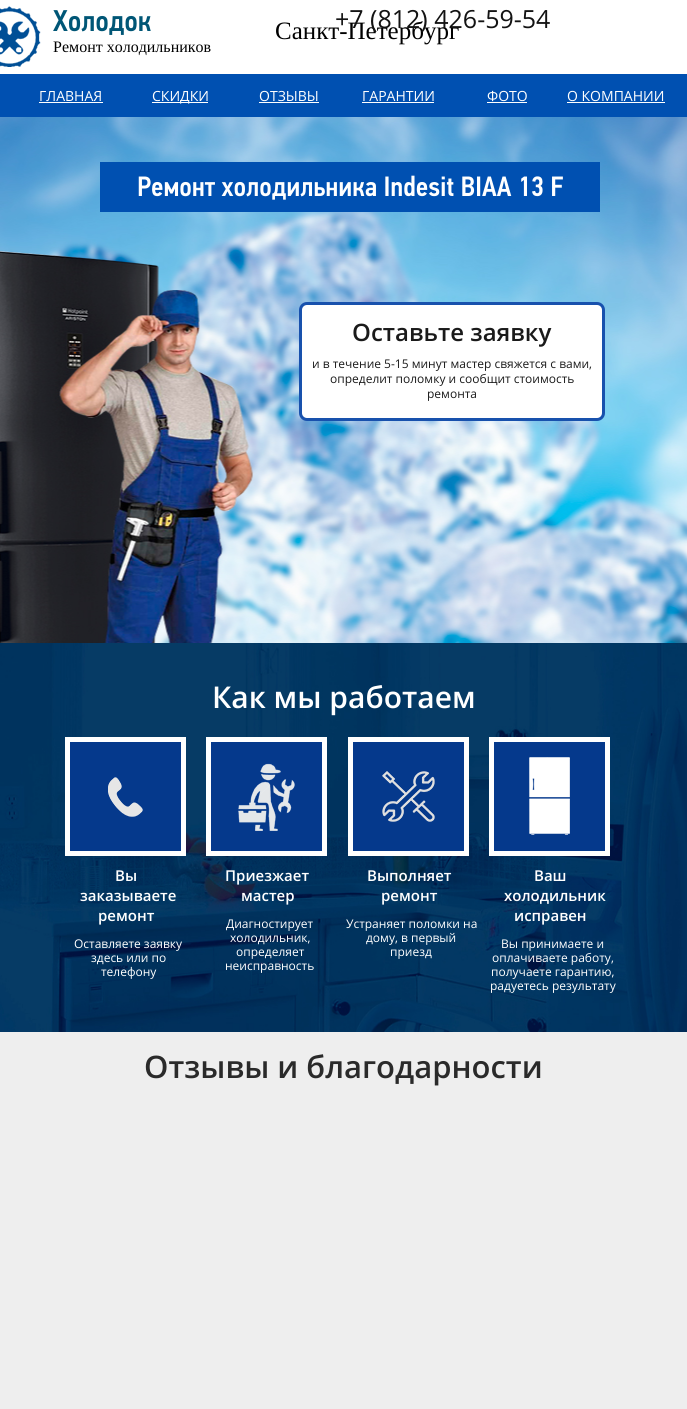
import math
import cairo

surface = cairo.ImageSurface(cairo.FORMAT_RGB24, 687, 1409)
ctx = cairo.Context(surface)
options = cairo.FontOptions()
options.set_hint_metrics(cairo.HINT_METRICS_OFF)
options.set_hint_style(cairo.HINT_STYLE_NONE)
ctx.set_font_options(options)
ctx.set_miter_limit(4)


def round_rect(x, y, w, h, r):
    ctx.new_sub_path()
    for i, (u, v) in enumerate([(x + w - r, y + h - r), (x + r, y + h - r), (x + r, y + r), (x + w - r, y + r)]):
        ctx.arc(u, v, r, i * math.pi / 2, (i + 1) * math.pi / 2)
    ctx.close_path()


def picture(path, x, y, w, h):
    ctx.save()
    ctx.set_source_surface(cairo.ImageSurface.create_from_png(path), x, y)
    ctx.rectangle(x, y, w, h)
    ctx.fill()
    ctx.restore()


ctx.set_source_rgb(1, 1, 1)
ctx.paint()
picture("img1.png", 0, 117, 687, 526)
ctx.select_font_face("Liberation Serif")
ctx.set_font_size(25)
ctx.set_source_rgb(0, 0, 0)
ctx.move_to(275, 39)
ctx.show_text("Санкт-Петербург")
ctx.select_font_face("Open Sans")
ctx.set_source_rgb(0.078, 0.078, 0.078)
ctx.move_to(335, 28)
ctx.show_text("+7 (812) 426-59-54")
picture("img2.png", 0, 6, 41, 61)
picture("img3.png", 53, 10, 98, 25)
ctx.select_font_face("Liberation Serif")
ctx.set_font_size(16)
ctx.set_source_rgb(0, 0, 0)
ctx.move_to(53, 52)
ctx.show_text("Ремонт холодильников")
ctx.set_source_rgb(0, 0.314, 0.694)
ctx.rectangle(0, 74, 687, 43)
ctx.fill()
ctx.select_font_face("Open Sans")
ctx.set_font_size(14)
ctx.set_source_rgb(1, 1, 1)
ctx.move_to(39, 101)
ctx.show_text("ГЛАВНАЯ")
ctx.rectangle(39, 102, 64, 1)
ctx.fill()
ctx.rectangle(152, 102, 56, 1)
ctx.fill()
ctx.move_to(152, 101)
ctx.show_text("СКИДКИ")
ctx.move_to(259, 101)
ctx.show_text("ОТЗЫВЫ")
ctx.rectangle(259, 102, 60, 1)
ctx.fill()
ctx.move_to(362, 101)
ctx.show_text("ГАРАНТИИ")
ctx.rectangle(362, 102, 72, 1)
ctx.fill()
ctx.move_to(487, 101)
ctx.show_text("ФОТО")
ctx.rectangle(487, 102, 40, 1)
ctx.fill()
ctx.move_to(567, 101)
ctx.show_text("О КОМПАНИИ")
ctx.rectangle(567, 102, 98, 1)
ctx.fill()
ctx.set_source_rgb(0, 0.314, 0.694)
ctx.rectangle(100, 162, 500, 50)
ctx.fill()
picture("img4.png", 138, 175, 425, 25)
ctx.set_source_rgb(1, 1, 1)
round_rect(300.5, 303.5, 303, 116, 6.5)
ctx.fill_preserve()
ctx.set_source_rgb(0.094, 0.318, 0.678)
ctx.set_line_width(3)
ctx.stroke()
ctx.select_font_face("Open Sans SemiBold")
ctx.set_font_size(24)
ctx.set_source_rgb(0.102, 0.102, 0.102)
ctx.move_to(352, 341)
ctx.show_text("Оставьте заявку")
ctx.select_font_face("Open Sans")
ctx.set_font_size(12)
ctx.move_to(312, 368)
ctx.show_text("и в течение 5-15 минут мастер свяжется с вами,")
ctx.move_to(330, 383)
ctx.show_text("определит поломку и сообщит стоимость")
ctx.move_to(427, 398)
ctx.show_text("ремонта")
picture("img5.png", 0, 643, 687, 389)
ctx.select_font_face("Open Sans SemiBold")
ctx.set_font_size(30)
ctx.set_source_rgb(1, 1, 1)
ctx.move_to(212, 708)
ctx.show_text("Как мы работаем")
ctx.set_source_rgb(0.02, 0.224, 0.549)
ctx.rectangle(67.5, 739.5, 116, 114)
ctx.fill_preserve()
ctx.set_source_rgb(1, 1, 1)
ctx.set_line_width(5)
ctx.stroke()
picture("img6.png", 108, 777, 35, 40)
ctx.set_font_size(15)
ctx.move_to(115, 881)
ctx.show_text("Вы")
ctx.move_to(80, 901)
ctx.show_text("заказываете")
ctx.move_to(98, 921)
ctx.show_text("ремонт")
ctx.select_font_face("Open Sans")
ctx.set_font_size(12)
ctx.move_to(74, 948)
ctx.show_text("Оставляете заявку")
ctx.move_to(91, 962)
ctx.show_text("здесь или по")
ctx.move_to(101, 976)
ctx.show_text("телефону")
ctx.set_source_rgb(0.02, 0.224, 0.549)
ctx.rectangle(208.5, 739.5, 116, 114)
ctx.fill_preserve()
ctx.set_source_rgb(1, 1, 1)
ctx.stroke()
picture("img7.png", 238, 763, 57, 68)
ctx.select_font_face("Open Sans SemiBold")
ctx.set_font_size(15)
ctx.move_to(225, 881)
ctx.show_text("Приезжает")
ctx.move_to(241, 901)
ctx.show_text("мастер")
ctx.select_font_face("Open Sans")
ctx.set_font_size(12)
ctx.move_to(226, 928)
ctx.show_text("Диагностирует")
ctx.move_to(230, 942)
ctx.show_text("холодильник,")
ctx.move_to(236, 956)
ctx.show_text("определяет")
ctx.move_to(225, 970)
ctx.show_text("неисправность")
ctx.set_source_rgb(0.02, 0.224, 0.549)
ctx.rectangle(350.5, 739.5, 116, 114)
ctx.fill_preserve()
ctx.set_source_rgb(1, 1, 1)
ctx.stroke()
picture("img8.png", 382, 771, 53, 51)
ctx.select_font_face("Open Sans SemiBold")
ctx.set_font_size(15)
ctx.move_to(367, 881)
ctx.show_text("Выполняет")
ctx.move_to(381, 901)
ctx.show_text("ремонт")
ctx.select_font_face("Open Sans")
ctx.set_font_size(12)
ctx.move_to(346, 928)
ctx.show_text("Устраняет поломки на")
ctx.move_to(366, 942)
ctx.show_text("дому, в первый")
ctx.move_to(390, 956)
ctx.show_text("приезд")
ctx.set_source_rgb(0.02, 0.224, 0.549)
ctx.rectangle(491.5, 739.5, 116, 114)
ctx.fill_preserve()
ctx.set_source_rgb(1, 1, 1)
ctx.stroke()
picture("img9.png", 529, 757, 41, 78)
ctx.select_font_face("Open Sans SemiBold")
ctx.set_font_size(15)
ctx.move_to(534, 881)
ctx.show_text("Ваш")
ctx.move_to(504, 901)
ctx.show_text("холодильник")
ctx.move_to(514, 921)
ctx.show_text("исправен")
ctx.select_font_face("Open Sans")
ctx.set_font_size(12)
ctx.move_to(501, 948)
ctx.show_text("Вы принимаете и")
ctx.move_to(492, 962)
ctx.show_text("оплачиваете работу,")
ctx.move_to(491, 976)
ctx.show_text("получаете гарантию,")
ctx.move_to(490, 990)
ctx.show_text("радуетесь результату")
ctx.set_source_rgb(0.933, 0.933, 0.933)
ctx.rectangle(0, 1032, 687, 377)
ctx.fill()
ctx.select_font_face("Open Sans SemiBold")
ctx.set_font_size(31)
ctx.set_source_rgb(0.165, 0.165, 0.165)
ctx.move_to(144, 1078)
ctx.show_text("Отзывы и благодарности")
surface.write_to_png("page.png")
